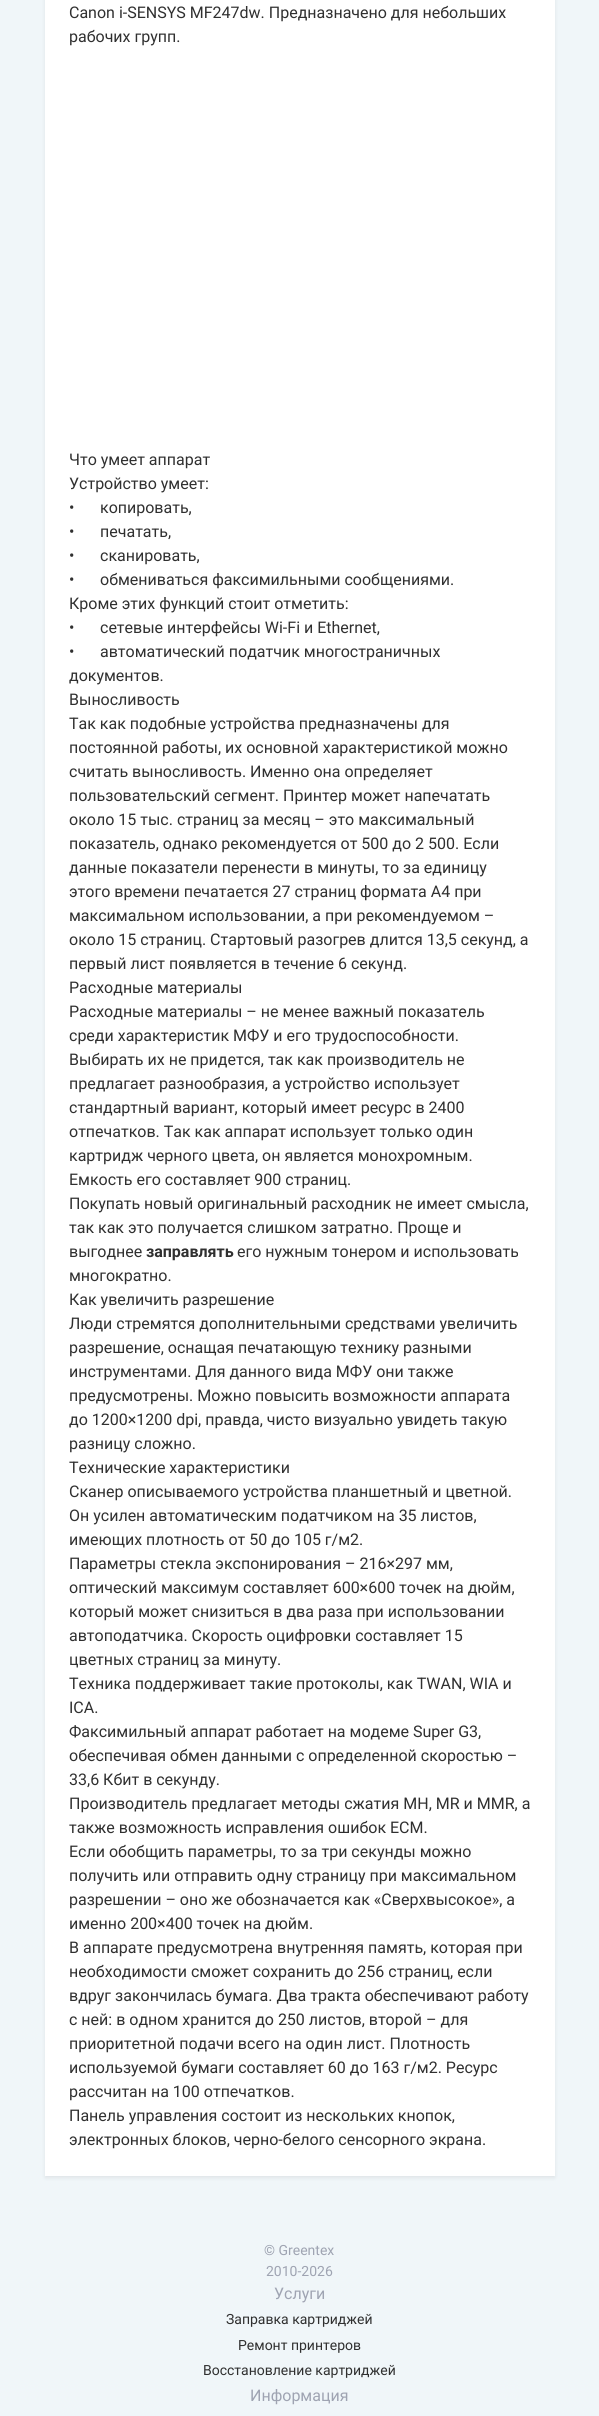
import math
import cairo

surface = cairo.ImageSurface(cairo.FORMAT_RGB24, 599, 2416)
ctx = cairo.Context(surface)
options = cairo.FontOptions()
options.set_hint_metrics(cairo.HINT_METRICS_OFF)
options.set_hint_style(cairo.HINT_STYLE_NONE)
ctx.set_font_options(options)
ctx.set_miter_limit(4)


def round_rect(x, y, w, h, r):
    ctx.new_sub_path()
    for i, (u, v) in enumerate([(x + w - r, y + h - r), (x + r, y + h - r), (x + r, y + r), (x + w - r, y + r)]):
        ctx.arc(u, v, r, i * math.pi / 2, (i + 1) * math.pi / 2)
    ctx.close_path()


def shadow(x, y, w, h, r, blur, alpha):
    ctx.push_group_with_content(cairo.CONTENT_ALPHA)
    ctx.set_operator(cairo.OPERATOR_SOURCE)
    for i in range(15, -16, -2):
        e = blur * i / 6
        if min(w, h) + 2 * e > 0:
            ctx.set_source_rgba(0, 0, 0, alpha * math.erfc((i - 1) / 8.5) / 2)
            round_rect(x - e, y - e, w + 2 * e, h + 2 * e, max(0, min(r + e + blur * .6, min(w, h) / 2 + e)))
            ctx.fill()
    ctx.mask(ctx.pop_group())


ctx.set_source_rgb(0.941, 0.961, 0.976)
ctx.paint()
ctx.set_source_rgb(0, 0, 0)
shadow(45, -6, 510, 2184, 0, 2, 0.07)
ctx.set_source_rgb(1, 1, 1)
ctx.rectangle(45, 0, 510, 2176)
ctx.fill()
ctx.select_font_face("Roboto")
ctx.set_font_size(16)
ctx.set_source_rgb(0.188, 0.188, 0.188)
ctx.move_to(69, 18)
ctx.show_text("Canon i-SENSYS MF247dw. Предназначено для небольших")
ctx.move_to(69, 42)
ctx.show_text("рабочих групп.")
ctx.move_to(69, 465)
ctx.show_text("Что умеет аппарат")
ctx.move_to(69, 489)
ctx.show_text("Устройство умеет:")
ctx.move_to(69, 513)
ctx.show_text("•")
ctx.move_to(100, 513)
ctx.show_text("копировать,")
ctx.move_to(69, 537)
ctx.show_text("•")
ctx.move_to(100, 537)
ctx.show_text("печатать,")
ctx.move_to(69, 561)
ctx.show_text("•")
ctx.move_to(100, 561)
ctx.show_text("сканировать,")
ctx.move_to(69, 585)
ctx.show_text("•")
ctx.move_to(100, 585)
ctx.show_text("обмениваться факсимильными сообщениями.")
ctx.move_to(69, 609)
ctx.show_text("Кроме этих функций стоит отметить:")
ctx.move_to(69, 633)
ctx.show_text("•")
ctx.move_to(100, 633)
ctx.show_text("сетевые интерфейсы Wi-Fi и Ethernet,")
ctx.move_to(69, 657)
ctx.show_text("•")
ctx.move_to(100, 657)
ctx.show_text("автоматический податчик многостраничных")
ctx.move_to(69, 681)
ctx.show_text("документов.")
ctx.move_to(69, 705)
ctx.show_text("Выносливость")
ctx.move_to(69, 729)
ctx.show_text("Так как подобные устройства предназначены для")
ctx.move_to(69, 753)
ctx.show_text("постоянной работы, их основной характеристикой можно")
ctx.move_to(69, 777)
ctx.show_text("считать выносливость. Именно она определяет")
ctx.move_to(69, 801)
ctx.show_text("пользовательский сегмент. Принтер может напечатать")
ctx.move_to(69, 825)
ctx.show_text("около 15 тыс. страниц за месяц – это максимальный")
ctx.move_to(69, 849)
ctx.show_text("показатель, однако рекомендуется от 500 до 2 500. Если")
ctx.move_to(69, 873)
ctx.show_text("данные показатели перенести в минуты, то за единицу")
ctx.move_to(69, 897)
ctx.show_text("этого времени печатается 27 страниц формата А4 при")
ctx.move_to(69, 921)
ctx.show_text("максимальном использовании, а при рекомендуемом –")
ctx.move_to(69, 945)
ctx.show_text("около 15 страниц. Стартовый разогрев длится 13,5 секунд, а")
ctx.move_to(69, 969)
ctx.show_text("первый лист появляется в течение 6 секунд.")
ctx.move_to(69, 993)
ctx.show_text("Расходные материалы")
ctx.move_to(69, 1017)
ctx.show_text("Расходные материалы – не менее важный показатель")
ctx.move_to(69, 1041)
ctx.show_text("среди характеристик МФУ и его трудоспособности.")
ctx.move_to(69, 1065)
ctx.show_text("Выбирать их не придется, так как производитель не")
ctx.move_to(69, 1089)
ctx.show_text("предлагает разнообразия, а устройство использует")
ctx.move_to(69, 1113)
ctx.show_text("стандартный вариант, который имеет ресурс в 2400")
ctx.move_to(69, 1137)
ctx.show_text("отпечатков. Так как аппарат использует только один")
ctx.move_to(69, 1161)
ctx.show_text("картридж черного цвета, он является монохромным.")
ctx.move_to(69, 1185)
ctx.show_text("Емкость его составляет 900 страниц.")
ctx.move_to(69, 1209)
ctx.show_text("Покупать новый оригинальный расходник не имеет смысла,")
ctx.move_to(69, 1233)
ctx.show_text("так как это получается слишком затратно. Проще и")
ctx.move_to(69, 1257)
ctx.show_text("выгоднее")
ctx.select_font_face("Roboto", cairo.FONT_SLANT_NORMAL, cairo.FONT_WEIGHT_BOLD)
ctx.move_to(146, 1257)
ctx.show_text("заправлять")
ctx.select_font_face("Roboto")
ctx.move_to(237, 1257)
ctx.show_text("его нужным тонером и использовать")
ctx.move_to(69, 1281)
ctx.show_text("многократно.")
ctx.move_to(69, 1305)
ctx.show_text("Как увеличить разрешение")
ctx.move_to(69, 1329)
ctx.show_text("Люди стремятся дополнительными средствами увеличить")
ctx.move_to(69, 1353)
ctx.show_text("разрешение, оснащая печатающую технику разными")
ctx.move_to(69, 1377)
ctx.show_text("инструментами. Для данного вида МФУ они также")
ctx.move_to(69, 1401)
ctx.show_text("предусмотрены. Можно повысить возможности аппарата")
ctx.move_to(69, 1425)
ctx.show_text("до 1200×1200 dpi, правда, чисто визуально увидеть такую")
ctx.move_to(69, 1449)
ctx.show_text("разницу сложно.")
ctx.move_to(69, 1473)
ctx.show_text("Технические характеристики")
ctx.move_to(69, 1497)
ctx.show_text("Сканер описываемого устройства планшетный и цветной.")
ctx.move_to(69, 1521)
ctx.show_text("Он усилен автоматическим податчиком на 35 листов,")
ctx.move_to(69, 1545)
ctx.show_text("имеющих плотность от 50 до 105 г/м2.")
ctx.move_to(69, 1569)
ctx.show_text("Параметры стекла экспонирования – 216×297 мм,")
ctx.move_to(69, 1593)
ctx.show_text("оптический максимум составляет 600×600 точек на дюйм,")
ctx.move_to(69, 1617)
ctx.show_text("который может снизиться в два раза при использовании")
ctx.move_to(69, 1641)
ctx.show_text("автоподатчика. Скорость оцифровки составляет 15")
ctx.move_to(69, 1665)
ctx.show_text("цветных страниц за минуту.")
ctx.move_to(69, 1689)
ctx.show_text("Техника поддерживает такие протоколы, как TWAN, WIA и")
ctx.move_to(69, 1713)
ctx.show_text("ICA.")
ctx.move_to(69, 1737)
ctx.show_text("Факсимильный аппарат работает на модеме Super G3,")
ctx.move_to(69, 1761)
ctx.show_text("обеспечивая обмен данными с определенной скоростью –")
ctx.move_to(69, 1785)
ctx.show_text("33,6 Кбит в секунду.")
ctx.move_to(69, 1809)
ctx.show_text("Производитель предлагает методы сжатия MH, MR и MMR, а")
ctx.move_to(69, 1833)
ctx.show_text("также возможность исправления ошибок ECM.")
ctx.move_to(69, 1857)
ctx.show_text("Если обобщить параметры, то за три секунды можно")
ctx.move_to(69, 1881)
ctx.show_text("получить или отправить одну страницу при максимальном")
ctx.move_to(69, 1905)
ctx.show_text("разрешении – оно же обозначается как «Сверхвысокое», а")
ctx.move_to(69, 1929)
ctx.show_text("именно 200×400 точек на дюйм.")
ctx.move_to(69, 1953)
ctx.show_text("В аппарате предусмотрена внутренняя память, которая при")
ctx.move_to(69, 1977)
ctx.show_text("необходимости сможет сохранить до 256 страниц, если")
ctx.move_to(69, 2001)
ctx.show_text("вдруг закончилась бумага. Два тракта обеспечивают работу")
ctx.move_to(69, 2025)
ctx.show_text("с ней: в одном хранится до 250 листов, второй – для")
ctx.move_to(69, 2049)
ctx.show_text("приоритетной подачи всего на один лист. Плотность")
ctx.move_to(69, 2073)
ctx.show_text("используемой бумаги составляет 60 до 163 г/м2. Ресурс")
ctx.move_to(69, 2097)
ctx.show_text("рассчитан на 100 отпечатков.")
ctx.move_to(69, 2121)
ctx.show_text("Панель управления состоит из нескольких кнопок,")
ctx.move_to(69, 2145)
ctx.show_text("электронных блоков, черно-белого сенсорного экрана.")
ctx.set_font_size(14)
ctx.set_source_rgb(0.624, 0.643, 0.698)
ctx.move_to(264, 2255)
ctx.show_text("© Greentex")
ctx.move_to(266, 2276)
ctx.show_text("2010-2026")
ctx.set_font_size(16)
ctx.move_to(274, 2299)
ctx.show_text("Услуги")
ctx.set_font_size(14)
ctx.set_source_rgb(0.188, 0.188, 0.188)
ctx.move_to(226, 2324)
ctx.show_text("Заправка картриджей")
ctx.move_to(238, 2350)
ctx.show_text("Ремонт принтеров")
ctx.move_to(203, 2375)
ctx.show_text("Восстановление картриджей")
ctx.set_font_size(16)
ctx.set_source_rgb(0.624, 0.643, 0.698)
ctx.move_to(250, 2401)
ctx.show_text("Информация")
surface.write_to_png("page.png")
